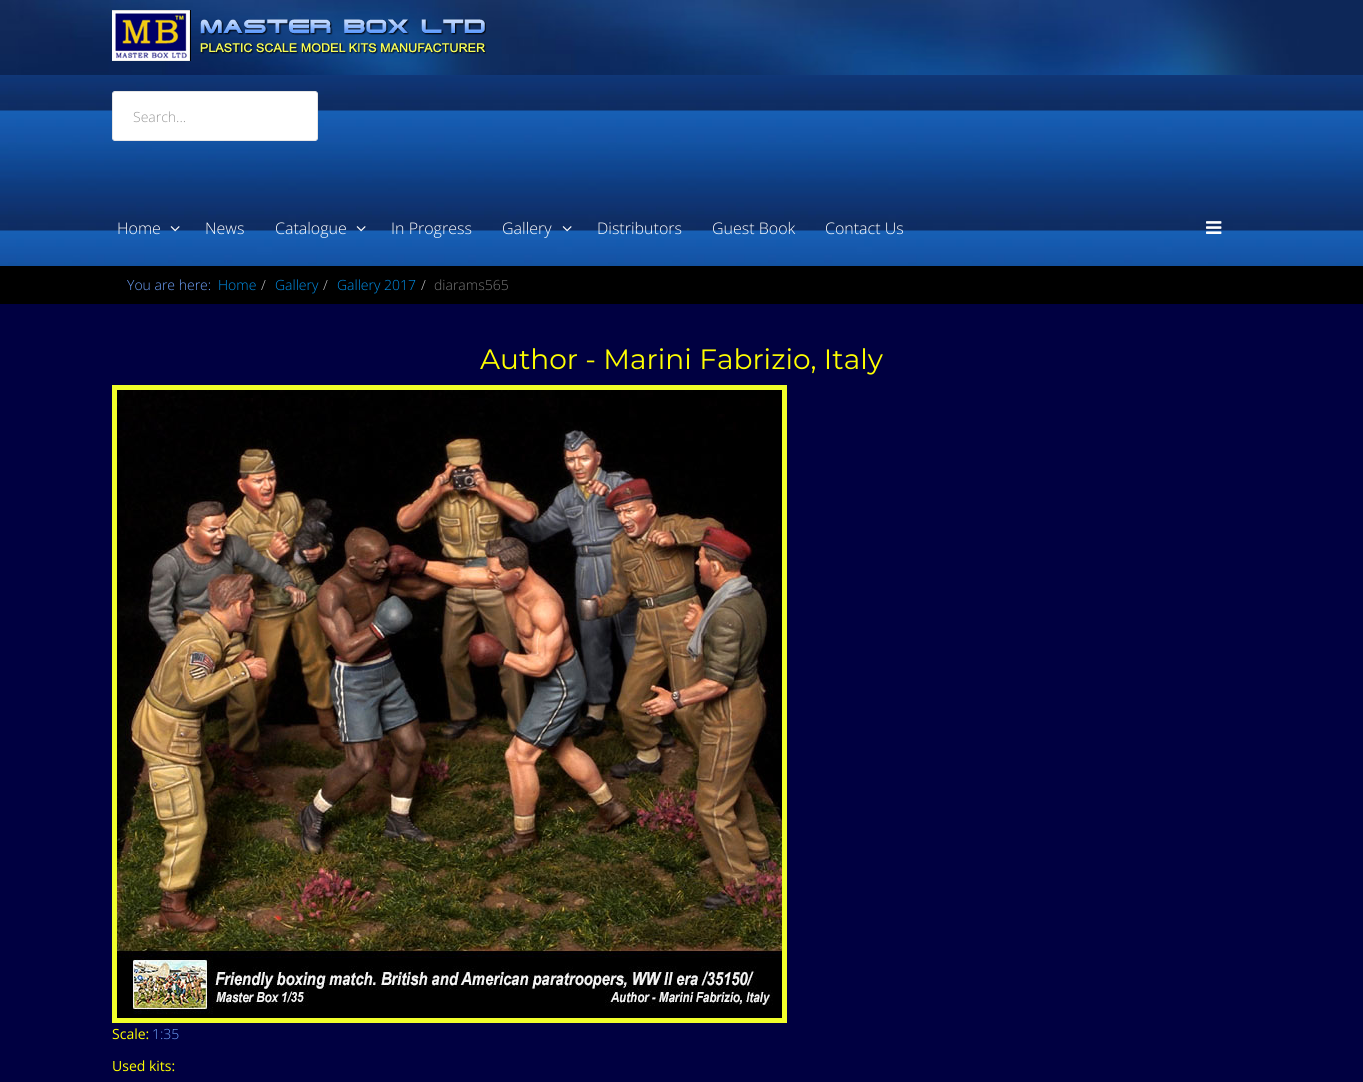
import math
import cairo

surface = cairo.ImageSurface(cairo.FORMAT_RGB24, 1363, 1082)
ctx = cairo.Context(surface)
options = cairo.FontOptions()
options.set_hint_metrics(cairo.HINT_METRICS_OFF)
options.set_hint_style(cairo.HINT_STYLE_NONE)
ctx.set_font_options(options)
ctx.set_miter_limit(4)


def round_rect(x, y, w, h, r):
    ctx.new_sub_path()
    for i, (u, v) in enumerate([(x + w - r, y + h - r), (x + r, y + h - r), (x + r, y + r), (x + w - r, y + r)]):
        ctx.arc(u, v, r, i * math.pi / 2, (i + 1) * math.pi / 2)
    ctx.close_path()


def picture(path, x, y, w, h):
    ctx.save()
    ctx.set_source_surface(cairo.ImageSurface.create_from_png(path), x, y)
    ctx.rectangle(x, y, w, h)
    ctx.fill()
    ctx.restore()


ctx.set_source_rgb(1, 1, 1)
ctx.paint()
picture("img1.png", 0, 0, 1363, 75)
picture("img2.png", 112, 10, 374, 51)
picture("img3.png", 0, 75, 1363, 191)
ctx.set_source_rgb(1, 1, 1)
round_rect(112.5, 91.5, 205, 49, 2.5)
ctx.fill_preserve()
ctx.set_source_rgb(0.902, 0.902, 0.902)
ctx.set_line_width(1)
ctx.stroke()
ctx.select_font_face("Open Sans Light")
ctx.set_font_size(14)
ctx.set_source_rgb(0.6, 0.6, 0.6)
ctx.move_to(133, 122)
ctx.show_text("Search...")
ctx.set_font_size(16)
ctx.set_source_rgb(1, 1, 1)
ctx.move_to(117, 234)
ctx.show_text("Home")
picture("img4.png", 170, 226, 10, 6)
ctx.move_to(205, 234)
ctx.show_text("News")
ctx.move_to(275, 234)
ctx.show_text("Catalogue")
picture("img5.png", 356, 226, 10, 6)
ctx.move_to(391, 234)
ctx.show_text("In Progress")
ctx.move_to(502, 234)
ctx.show_text("Gallery")
picture("img6.png", 562, 226, 10, 6)
ctx.move_to(597, 234)
ctx.show_text("Distributors")
ctx.move_to(712, 234)
ctx.show_text("Guest Book")
ctx.move_to(825, 234)
ctx.show_text("Contact Us")
picture("img7.png", 1206, 221, 16, 13)
ctx.set_source_rgb(0, 0, 0)
ctx.rectangle(0, 266, 1363, 38)
ctx.fill()
ctx.set_font_size(14)
ctx.set_source_rgb(0.435, 0.635, 0.988)
ctx.move_to(127, 290)
ctx.show_text("You are here:")
ctx.set_source_rgb(0, 0.569, 0.918)
ctx.move_to(218, 290)
ctx.show_text("Home")
ctx.set_source_rgb(0.8, 0.8, 0.8)
ctx.move_to(261, 290)
ctx.show_text("/")
ctx.set_source_rgb(0, 0.569, 0.918)
ctx.move_to(275, 290)
ctx.show_text("Gallery")
ctx.set_source_rgb(0.8, 0.8, 0.8)
ctx.move_to(323, 290)
ctx.show_text("/")
ctx.set_source_rgb(0, 0.569, 0.918)
ctx.move_to(337, 290)
ctx.show_text("Gallery 2017")
ctx.set_source_rgb(0.8, 0.8, 0.8)
ctx.move_to(421, 290)
ctx.show_text("/")
ctx.set_source_rgb(0.467, 0.467, 0.467)
ctx.move_to(434, 290)
ctx.show_text("diarams565")
ctx.set_source_rgb(0, 0, 0.255)
ctx.rectangle(0, 304, 1363, 778)
ctx.fill()
ctx.select_font_face("Montserrat")
ctx.set_font_size(28)
ctx.set_source_rgb(1, 1, 0)
ctx.move_to(480, 369)
ctx.show_text("Author - Marini Fabrizio, Italy")
ctx.rectangle(114.5, 387.5, 670, 633)
ctx.set_source_rgb(0.945, 0.996, 0.165)
ctx.set_line_width(5)
ctx.stroke()
picture("img8.png", 117, 390, 665, 628)
ctx.select_font_face("Open Sans")
ctx.set_font_size(14)
ctx.set_source_rgb(1, 1, 0)
ctx.move_to(112, 1039)
ctx.show_text("Scale:")
ctx.select_font_face("Open Sans Light")
ctx.set_source_rgb(0.435, 0.635, 0.988)
ctx.move_to(152, 1039)
ctx.show_text("1:35")
ctx.select_font_face("Open Sans")
ctx.set_source_rgb(1, 1, 0)
ctx.move_to(112, 1071)
ctx.show_text("Used kits:")
surface.write_to_png("page.png")
